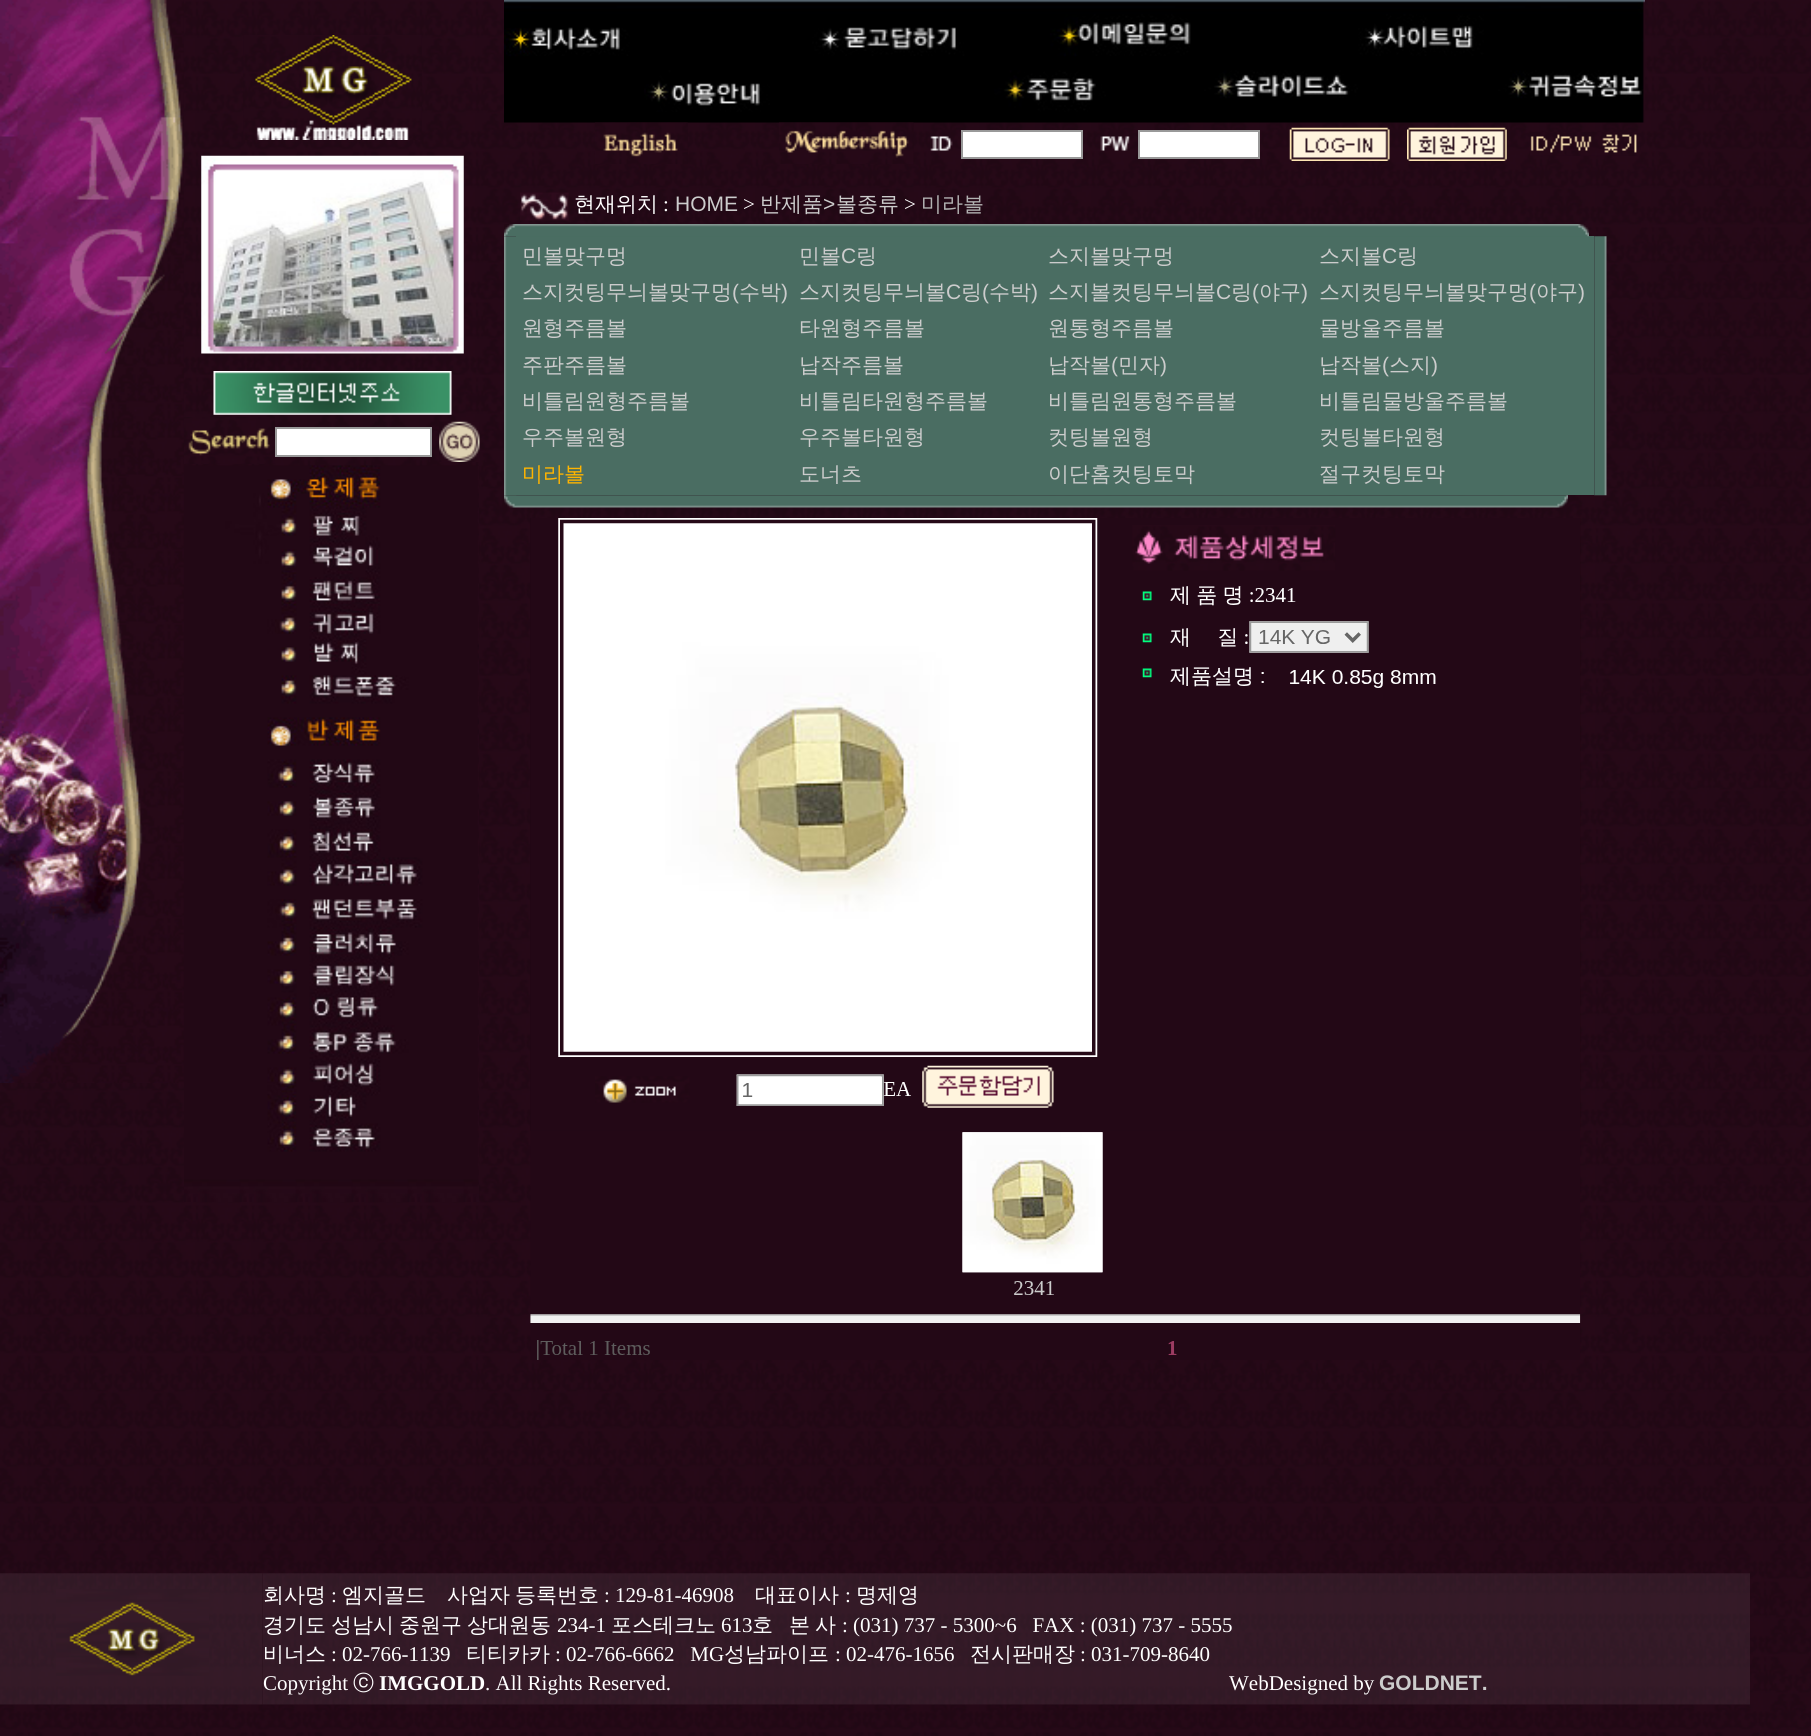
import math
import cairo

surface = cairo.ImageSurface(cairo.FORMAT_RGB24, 1811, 1736)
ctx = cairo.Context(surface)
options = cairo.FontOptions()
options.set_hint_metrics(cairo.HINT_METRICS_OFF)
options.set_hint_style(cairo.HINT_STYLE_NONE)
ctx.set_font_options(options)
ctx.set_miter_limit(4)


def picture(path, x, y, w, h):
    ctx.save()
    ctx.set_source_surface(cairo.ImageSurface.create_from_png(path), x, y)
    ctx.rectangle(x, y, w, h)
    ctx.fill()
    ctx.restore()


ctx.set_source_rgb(1, 1, 1)
ctx.paint()
picture("img1.png", 0, 0, 1811, 1736)
picture("img2.png", 0, 0, 184, 1083)
picture("img3.png", 243, 35, 179, 105)
picture("img4.png", 201, 155, 263, 199)
picture("img5.png", 213, 371, 239, 44)
picture("img6.png", 184, 417, 91, 47)
ctx.set_source_rgb(1, 1, 1)
ctx.rectangle(276, 428, 155, 28)
ctx.fill_preserve()
ctx.set_source_rgb(0.6, 0.6, 0.6)
ctx.stroke()
picture("img7.png", 439, 421, 41, 41)
picture("img8.png", 184, 465, 295, 737)
picture("img9.png", 504, 0, 1141, 123)
picture("img10.png", 595, 122, 93, 42)
picture("img11.png", 779, 122, 135, 42)
picture("img12.png", 930, 136, 23, 15)
ctx.set_source_rgb(1, 1, 1)
ctx.rectangle(962, 131, 120, 27)
ctx.fill_preserve()
ctx.set_source_rgb(0.6, 0.6, 0.6)
ctx.stroke()
picture("img13.png", 1100, 136, 30, 15)
ctx.set_source_rgb(1, 1, 1)
ctx.rectangle(1139, 131, 120, 27)
ctx.fill_preserve()
ctx.set_source_rgb(0.6, 0.6, 0.6)
ctx.stroke()
picture("img14.png", 1289, 127, 101, 34)
picture("img15.png", 1407, 127, 100, 34)
picture("img16.png", 1530, 132, 107, 24)
picture("img17.png", 520, 192, 49, 29)
ctx.select_font_face("WenQuanYi Zen Hei Medium")
ctx.set_font_size(21)
ctx.set_source_rgb(1, 1, 1)
ctx.move_to(574, 211)
ctx.show_text("현재위치")
ctx.select_font_face("Liberation Serif")
ctx.move_to(663, 211)
ctx.show_text(":")
ctx.select_font_face("Liberation Sans")
ctx.set_source_rgb(0.8, 0.8, 0.8)
ctx.move_to(675, 211)
ctx.show_text("HOME")
ctx.select_font_face("Liberation Serif")
ctx.set_source_rgb(1, 1, 1)
ctx.move_to(743, 211)
ctx.show_text(">")
ctx.select_font_face("WenQuanYi Zen Hei Medium")
ctx.set_source_rgb(0.8, 0.8, 0.8)
ctx.move_to(760, 211)
ctx.show_text("반제품")
ctx.select_font_face("Liberation Sans")
ctx.move_to(823, 211)
ctx.show_text(">")
ctx.select_font_face("WenQuanYi Zen Hei Medium")
ctx.move_to(836, 211)
ctx.show_text("볼종류")
ctx.select_font_face("Liberation Serif")
ctx.set_source_rgb(1, 1, 1)
ctx.move_to(904, 211)
ctx.show_text(">")
ctx.select_font_face("WenQuanYi Zen Hei Medium")
ctx.set_source_rgb(0.698, 0.698, 0.698)
ctx.move_to(921, 211)
ctx.show_text("미라볼")
picture("img19.png", 504, 236, 13, 260)
ctx.set_source_rgb(0.29, 0.427, 0.384)
ctx.rectangle(516, 236, 1078, 259)
ctx.fill()
picture("img18.png", 504, 224, 1085, 13)
ctx.set_source_rgb(0.8, 0.8, 0.8)
ctx.move_to(522, 263)
ctx.show_text("민볼맞구멍")
ctx.move_to(799, 263)
ctx.show_text("민볼")
ctx.select_font_face("Liberation Sans")
ctx.move_to(841, 263)
ctx.show_text("C")
ctx.select_font_face("WenQuanYi Zen Hei Medium")
ctx.move_to(856, 263)
ctx.show_text("링")
ctx.move_to(1048, 263)
ctx.show_text("스지볼맞구멍")
ctx.move_to(1319, 263)
ctx.show_text("스지볼")
ctx.select_font_face("Liberation Sans")
ctx.move_to(1382, 263)
ctx.show_text("C")
ctx.select_font_face("WenQuanYi Zen Hei Medium")
ctx.move_to(1397, 263)
ctx.show_text("링")
ctx.move_to(522, 299)
ctx.show_text("스지컷팅무늬볼맞구멍")
ctx.select_font_face("Liberation Sans")
ctx.move_to(732, 299)
ctx.show_text("(")
ctx.select_font_face("WenQuanYi Zen Hei Medium")
ctx.move_to(739, 299)
ctx.show_text("수박")
ctx.select_font_face("Liberation Sans")
ctx.move_to(781, 299)
ctx.show_text(")")
ctx.select_font_face("WenQuanYi Zen Hei Medium")
ctx.move_to(799, 299)
ctx.show_text("스지컷팅무늬볼")
ctx.select_font_face("Liberation Sans")
ctx.move_to(946, 299)
ctx.show_text("C")
ctx.select_font_face("WenQuanYi Zen Hei Medium")
ctx.move_to(961, 299)
ctx.show_text("링")
ctx.select_font_face("Liberation Sans")
ctx.move_to(982, 299)
ctx.show_text("(")
ctx.select_font_face("WenQuanYi Zen Hei Medium")
ctx.move_to(989, 299)
ctx.show_text("수박")
ctx.select_font_face("Liberation Sans")
ctx.move_to(1031, 299)
ctx.show_text(")")
ctx.select_font_face("WenQuanYi Zen Hei Medium")
ctx.move_to(1048, 299)
ctx.show_text("스지볼컷팅무늬볼")
ctx.select_font_face("Liberation Sans")
ctx.move_to(1216, 299)
ctx.show_text("C")
ctx.select_font_face("WenQuanYi Zen Hei Medium")
ctx.move_to(1231, 299)
ctx.show_text("링")
ctx.select_font_face("Liberation Sans")
ctx.move_to(1252, 299)
ctx.show_text("(")
ctx.select_font_face("WenQuanYi Zen Hei Medium")
ctx.move_to(1259, 299)
ctx.show_text("야구")
ctx.select_font_face("Liberation Sans")
ctx.move_to(1301, 299)
ctx.show_text(")")
ctx.select_font_face("WenQuanYi Zen Hei Medium")
ctx.move_to(1319, 299)
ctx.show_text("스지컷팅무늬볼맞구멍")
ctx.select_font_face("Liberation Sans")
ctx.move_to(1529, 299)
ctx.show_text("(")
ctx.select_font_face("WenQuanYi Zen Hei Medium")
ctx.move_to(1536, 299)
ctx.show_text("야구")
ctx.select_font_face("Liberation Sans")
ctx.move_to(1578, 299)
ctx.show_text(")")
ctx.select_font_face("WenQuanYi Zen Hei Medium")
ctx.move_to(522, 335)
ctx.show_text("원형주름볼")
ctx.move_to(799, 335)
ctx.show_text("타원형주름볼")
ctx.move_to(1048, 335)
ctx.show_text("원통형주름볼")
ctx.move_to(1319, 335)
ctx.show_text("물방울주름볼")
ctx.move_to(522, 372)
ctx.show_text("주판주름볼")
ctx.move_to(799, 372)
ctx.show_text("납작주름볼")
ctx.move_to(1048, 372)
ctx.show_text("납작볼")
ctx.select_font_face("Liberation Sans")
ctx.move_to(1111, 372)
ctx.show_text("(")
ctx.select_font_face("WenQuanYi Zen Hei Medium")
ctx.move_to(1118, 372)
ctx.show_text("민자")
ctx.select_font_face("Liberation Sans")
ctx.move_to(1160, 372)
ctx.show_text(")")
ctx.select_font_face("WenQuanYi Zen Hei Medium")
ctx.move_to(1319, 372)
ctx.show_text("납작볼")
ctx.select_font_face("Liberation Sans")
ctx.move_to(1382, 372)
ctx.show_text("(")
ctx.select_font_face("WenQuanYi Zen Hei Medium")
ctx.move_to(1389, 372)
ctx.show_text("스지")
ctx.select_font_face("Liberation Sans")
ctx.move_to(1431, 372)
ctx.show_text(")")
ctx.select_font_face("WenQuanYi Zen Hei Medium")
ctx.move_to(522, 408)
ctx.show_text("비틀림원형주름볼")
ctx.move_to(799, 408)
ctx.show_text("비틀림타원형주름볼")
ctx.move_to(1048, 408)
ctx.show_text("비틀림원통형주름볼")
ctx.move_to(1319, 408)
ctx.show_text("비틀림물방울주름볼")
ctx.move_to(522, 444)
ctx.show_text("우주볼원형")
ctx.move_to(799, 444)
ctx.show_text("우주볼타원형")
ctx.move_to(1048, 444)
ctx.show_text("컷팅볼원형")
ctx.move_to(1319, 444)
ctx.show_text("컷팅볼타원형")
ctx.set_source_rgb(1, 0.706, 0)
ctx.move_to(522, 481)
ctx.show_text("미라볼")
ctx.set_source_rgb(0.8, 0.8, 0.8)
ctx.move_to(799, 481)
ctx.show_text("도너츠")
ctx.move_to(1048, 481)
ctx.show_text("이단홈컷팅토막")
ctx.move_to(1319, 481)
ctx.show_text("절구컷팅토막")
picture("img20.png", 1594, 236, 13, 260)
picture("img21.png", 504, 495, 1064, 13)
picture("img22.png", 530, 518, 1051, 842)
picture("img23.png", 0, 1573, 263, 132)
picture("img24.png", 56, 1589, 153, 87)
picture("img25.png", 262, 1573, 1488, 132)
ctx.set_source_rgb(1, 1, 1)
ctx.move_to(263, 1602)
ctx.show_text("회사명")
ctx.select_font_face("Liberation Serif")
ctx.move_to(331, 1602)
ctx.show_text(":")
ctx.select_font_face("WenQuanYi Zen Hei Medium")
ctx.move_to(342, 1602)
ctx.show_text("엠지골드")
ctx.move_to(447, 1602)
ctx.show_text("사업자")
ctx.move_to(515, 1602)
ctx.show_text("등록번호")
ctx.select_font_face("Liberation Serif")
ctx.move_to(604, 1602)
ctx.show_text(": 129-81-46908")
ctx.select_font_face("WenQuanYi Zen Hei Medium")
ctx.move_to(755, 1602)
ctx.show_text("대표이사")
ctx.select_font_face("Liberation Serif")
ctx.move_to(845, 1602)
ctx.show_text(":")
ctx.select_font_face("WenQuanYi Zen Hei Medium")
ctx.move_to(856, 1602)
ctx.show_text("명제영")
ctx.move_to(263, 1632)
ctx.show_text("경기도")
ctx.move_to(331, 1632)
ctx.show_text("성남시")
ctx.move_to(399, 1632)
ctx.show_text("중원구")
ctx.move_to(467, 1632)
ctx.show_text("상대원동")
ctx.select_font_face("Liberation Serif")
ctx.move_to(557, 1632)
ctx.show_text("234-1")
ctx.select_font_face("WenQuanYi Zen Hei Medium")
ctx.move_to(611, 1632)
ctx.show_text("포스테크노")
ctx.select_font_face("Liberation Serif")
ctx.move_to(721, 1632)
ctx.show_text("613")
ctx.select_font_face("WenQuanYi Zen Hei Medium")
ctx.move_to(752, 1632)
ctx.show_text("호")
ctx.move_to(789, 1632)
ctx.show_text("본")
ctx.move_to(815, 1632)
ctx.show_text("사")
ctx.select_font_face("Liberation Serif")
ctx.move_to(842, 1632)
ctx.show_text(": (031) 737 - 5300~6   FAX : (031) 737 - 5555")
ctx.select_font_face("WenQuanYi Zen Hei Medium")
ctx.move_to(263, 1661)
ctx.show_text("비너스")
ctx.select_font_face("Liberation Serif")
ctx.move_to(331, 1661)
ctx.show_text(": 02-766-1139")
ctx.select_font_face("WenQuanYi Zen Hei Medium")
ctx.move_to(466, 1661)
ctx.show_text("티티카카")
ctx.select_font_face("Liberation Serif")
ctx.move_to(555, 1661)
ctx.show_text(": 02-766-6662   MG")
ctx.select_font_face("WenQuanYi Zen Hei Medium")
ctx.move_to(724, 1661)
ctx.show_text("성남파이프")
ctx.select_font_face("Liberation Serif")
ctx.move_to(835, 1661)
ctx.show_text(": 02-476-1656")
ctx.select_font_face("WenQuanYi Zen Hei Medium")
ctx.move_to(970, 1661)
ctx.show_text("전시판매장")
ctx.select_font_face("Liberation Serif")
ctx.move_to(1080, 1661)
ctx.show_text(": 031-709-8640")
ctx.move_to(263, 1690)
ctx.show_text("Copyright")
ctx.select_font_face("WenQuanYi Zen Hei Medium")
ctx.move_to(353, 1690)
ctx.show_text("ⓒ")
ctx.select_font_face("Liberation Serif", cairo.FONT_SLANT_NORMAL, cairo.FONT_WEIGHT_BOLD)
ctx.move_to(379, 1690)
ctx.show_text("IMGGOLD")
ctx.select_font_face("Liberation Serif")
ctx.move_to(485, 1690)
ctx.show_text(". All Rights Reserved.")
ctx.move_to(1229, 1690)
ctx.show_text("WebDesigned by")
ctx.select_font_face("Liberation Sans", cairo.FONT_SLANT_NORMAL, cairo.FONT_WEIGHT_BOLD)
ctx.set_source_rgb(0.8, 0.8, 0.8)
ctx.move_to(1379, 1690)
ctx.show_text("GOLDNET.")
surface.write_to_png("page.png")
